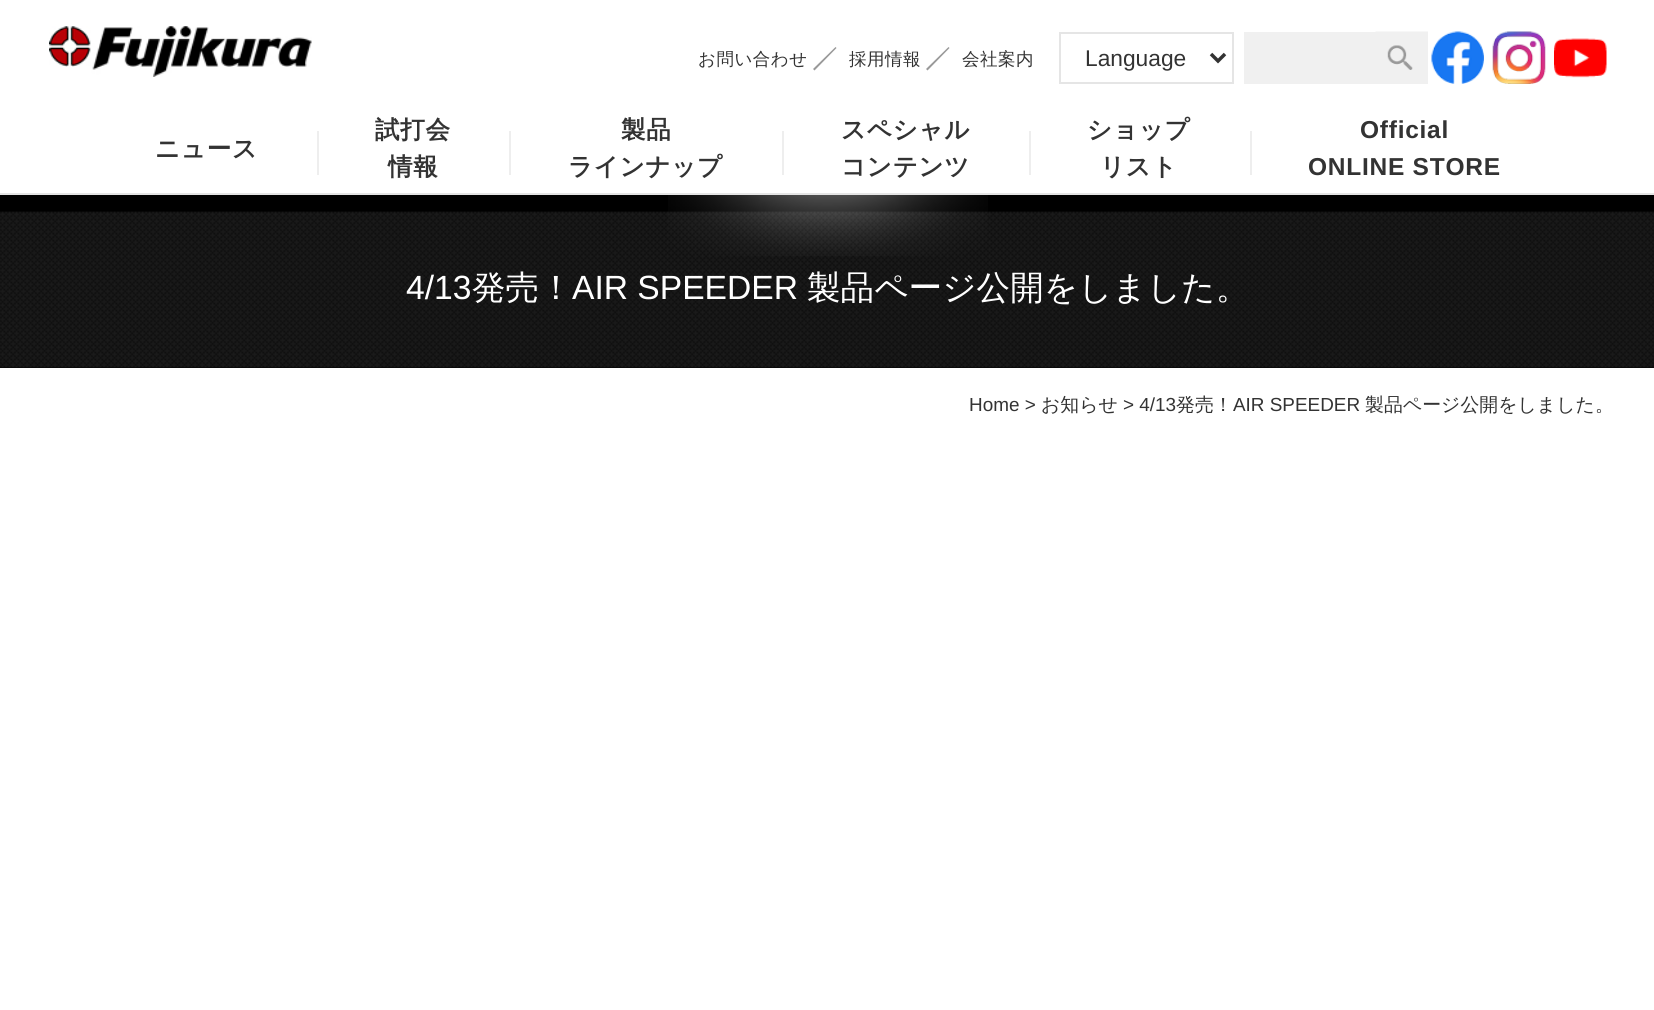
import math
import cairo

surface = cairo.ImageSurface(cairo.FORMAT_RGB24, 1654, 1010)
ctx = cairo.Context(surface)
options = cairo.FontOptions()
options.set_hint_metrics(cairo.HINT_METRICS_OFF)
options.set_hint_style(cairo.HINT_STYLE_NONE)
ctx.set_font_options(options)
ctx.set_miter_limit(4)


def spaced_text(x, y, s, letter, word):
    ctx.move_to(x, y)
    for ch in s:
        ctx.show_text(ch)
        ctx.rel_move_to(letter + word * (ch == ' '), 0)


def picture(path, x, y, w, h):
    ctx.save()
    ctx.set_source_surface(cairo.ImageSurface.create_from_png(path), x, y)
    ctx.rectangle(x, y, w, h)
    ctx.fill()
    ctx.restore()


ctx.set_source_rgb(1, 1, 1)
ctx.paint()
ctx.set_source_rgb(0.898, 0.898, 0.898)
ctx.rectangle(0, 193, 1654, 2)
ctx.fill()
picture("img1.png", 49, 26, 263, 51)
picture("img2.png", 1431, 31, 53, 53)
picture("img3.png", 1492, 31, 54, 53)
picture("img4.png", 1554, 38, 53, 40)
ctx.select_font_face("WenQuanYi Zen Hei Medium")
ctx.set_font_size(17.5)
ctx.set_source_rgb(0.2, 0.2, 0.2)
spaced_text(698, 65, "お問い合わせ", 0.5, 0)
ctx.set_source_rgb(0.6, 0.6, 0.6)
ctx.new_path()
ctx.move_to(835.5, 47)
ctx.line_to(836.5, 48)
ctx.line_to(814.5, 70.5)
ctx.line_to(813, 69)
ctx.close_path()
ctx.fill()
ctx.set_source_rgb(0.2, 0.2, 0.2)
spaced_text(849, 65, "採用情報", 0.5, 0)
ctx.set_source_rgb(0.6, 0.6, 0.6)
ctx.new_path()
ctx.move_to(948.5, 47)
ctx.line_to(949.5, 48)
ctx.line_to(927.5, 70.5)
ctx.line_to(926, 69)
ctx.close_path()
ctx.fill()
ctx.set_source_rgb(0.2, 0.2, 0.2)
spaced_text(962, 65, "会社案内", 0.5, 0)
ctx.rectangle(1060, 33, 173, 50)
ctx.set_source_rgb(0.898, 0.898, 0.898)
ctx.stroke()
ctx.new_path()
ctx.move_to(1211, 54)
ctx.line_to(1218, 61)
ctx.line_to(1225, 54)
ctx.set_source_rgb(0.2, 0.2, 0.2)
ctx.set_line_width(3.5)
ctx.stroke()
ctx.select_font_face("Liberation Sans")
ctx.set_font_size(22.75)
ctx.move_to(1085, 66)
ctx.show_text("Language")
ctx.set_source_rgb(0.941, 0.941, 0.941)
ctx.rectangle(1244, 32, 184, 52)
ctx.fill()
picture("img5.png", 1375, 31, 53, 39)
ctx.select_font_face("WenQuanYi Zen Hei", cairo.FONT_SLANT_NORMAL, cairo.FONT_WEIGHT_BOLD)
ctx.set_font_size(24.5)
ctx.set_source_rgb(0.2, 0.2, 0.2)
spaced_text(155, 157, "ニュース", 0.75, 0)
ctx.set_source_rgb(0.933, 0.933, 0.933)
ctx.rectangle(317, 131, 2, 44)
ctx.fill()
ctx.set_source_rgb(0.2, 0.2, 0.2)
spaced_text(375, 138, "試打会", 0.75, 0)
spaced_text(388, 175, "情報", 0.75, 0)
ctx.set_source_rgb(0.933, 0.933, 0.933)
ctx.rectangle(509, 131, 2, 44)
ctx.fill()
ctx.set_source_rgb(0.2, 0.2, 0.2)
spaced_text(621, 138, "製品", 0.75, 0)
spaced_text(568, 175, "ラインナップ", 0.75, 0)
ctx.set_source_rgb(0.933, 0.933, 0.933)
ctx.rectangle(782, 131, 2, 44)
ctx.fill()
ctx.set_source_rgb(0.2, 0.2, 0.2)
spaced_text(841, 138, "スペシャル", 0.75, 0)
spaced_text(841, 175, "コンテンツ", 0.75, 0)
ctx.set_source_rgb(0.933, 0.933, 0.933)
ctx.rectangle(1029, 131, 2, 44)
ctx.fill()
ctx.set_source_rgb(0.2, 0.2, 0.2)
spaced_text(1087, 138, "ショップ", 0.75, 0)
spaced_text(1100, 175, "リスト", 0.75, 0)
ctx.set_source_rgb(0.933, 0.933, 0.933)
ctx.rectangle(1250, 131, 2, 44)
ctx.fill()
ctx.select_font_face("Liberation Sans", cairo.FONT_SLANT_NORMAL, cairo.FONT_WEIGHT_BOLD)
ctx.set_source_rgb(0.2, 0.2, 0.2)
spaced_text(1360, 138, "Official", 0.75, 0)
spaced_text(1308, 175, "ONLINE STORE", 0.75, 0)
ctx.set_source_rgb(0, 0, 0)
ctx.rectangle(0, 195, 1654, 173)
ctx.fill()
picture("img6.png", 0, 211, 1654, 157)
picture("img7.png", 668, 195, 320, 61)
ctx.select_font_face("Liberation Sans")
ctx.set_font_size(33.6)
ctx.set_source_rgb(1, 1, 1)
ctx.move_to(406, 299)
ctx.show_text("4/13")
ctx.select_font_face("WenQuanYi Zen Hei Medium")
ctx.move_to(472, 299)
ctx.show_text("発売！")
ctx.select_font_face("Liberation Sans")
ctx.move_to(572, 299)
ctx.show_text("AIR SPEEDER")
ctx.select_font_face("WenQuanYi Zen Hei Medium")
ctx.move_to(807, 299)
ctx.show_text("製品ページ公開をしました。")
ctx.select_font_face("Liberation Sans")
ctx.set_font_size(18.9)
ctx.set_source_rgb(0.2, 0.2, 0.2)
ctx.move_to(969, 411)
ctx.show_text("Home >")
ctx.select_font_face("WenQuanYi Zen Hei Medium")
ctx.move_to(1041, 411)
ctx.show_text("お知らせ")
ctx.select_font_face("Liberation Sans")
ctx.move_to(1123, 411)
ctx.show_text("> 4/13")
ctx.select_font_face("WenQuanYi Zen Hei Medium")
ctx.move_to(1176, 411)
ctx.show_text("発売！")
ctx.select_font_face("Liberation Sans")
ctx.move_to(1233, 411)
ctx.show_text("AIR SPEEDER")
ctx.select_font_face("WenQuanYi Zen Hei Medium")
ctx.move_to(1365, 411)
ctx.show_text("製品ページ公開をしました。")
surface.write_to_png("page.png")
